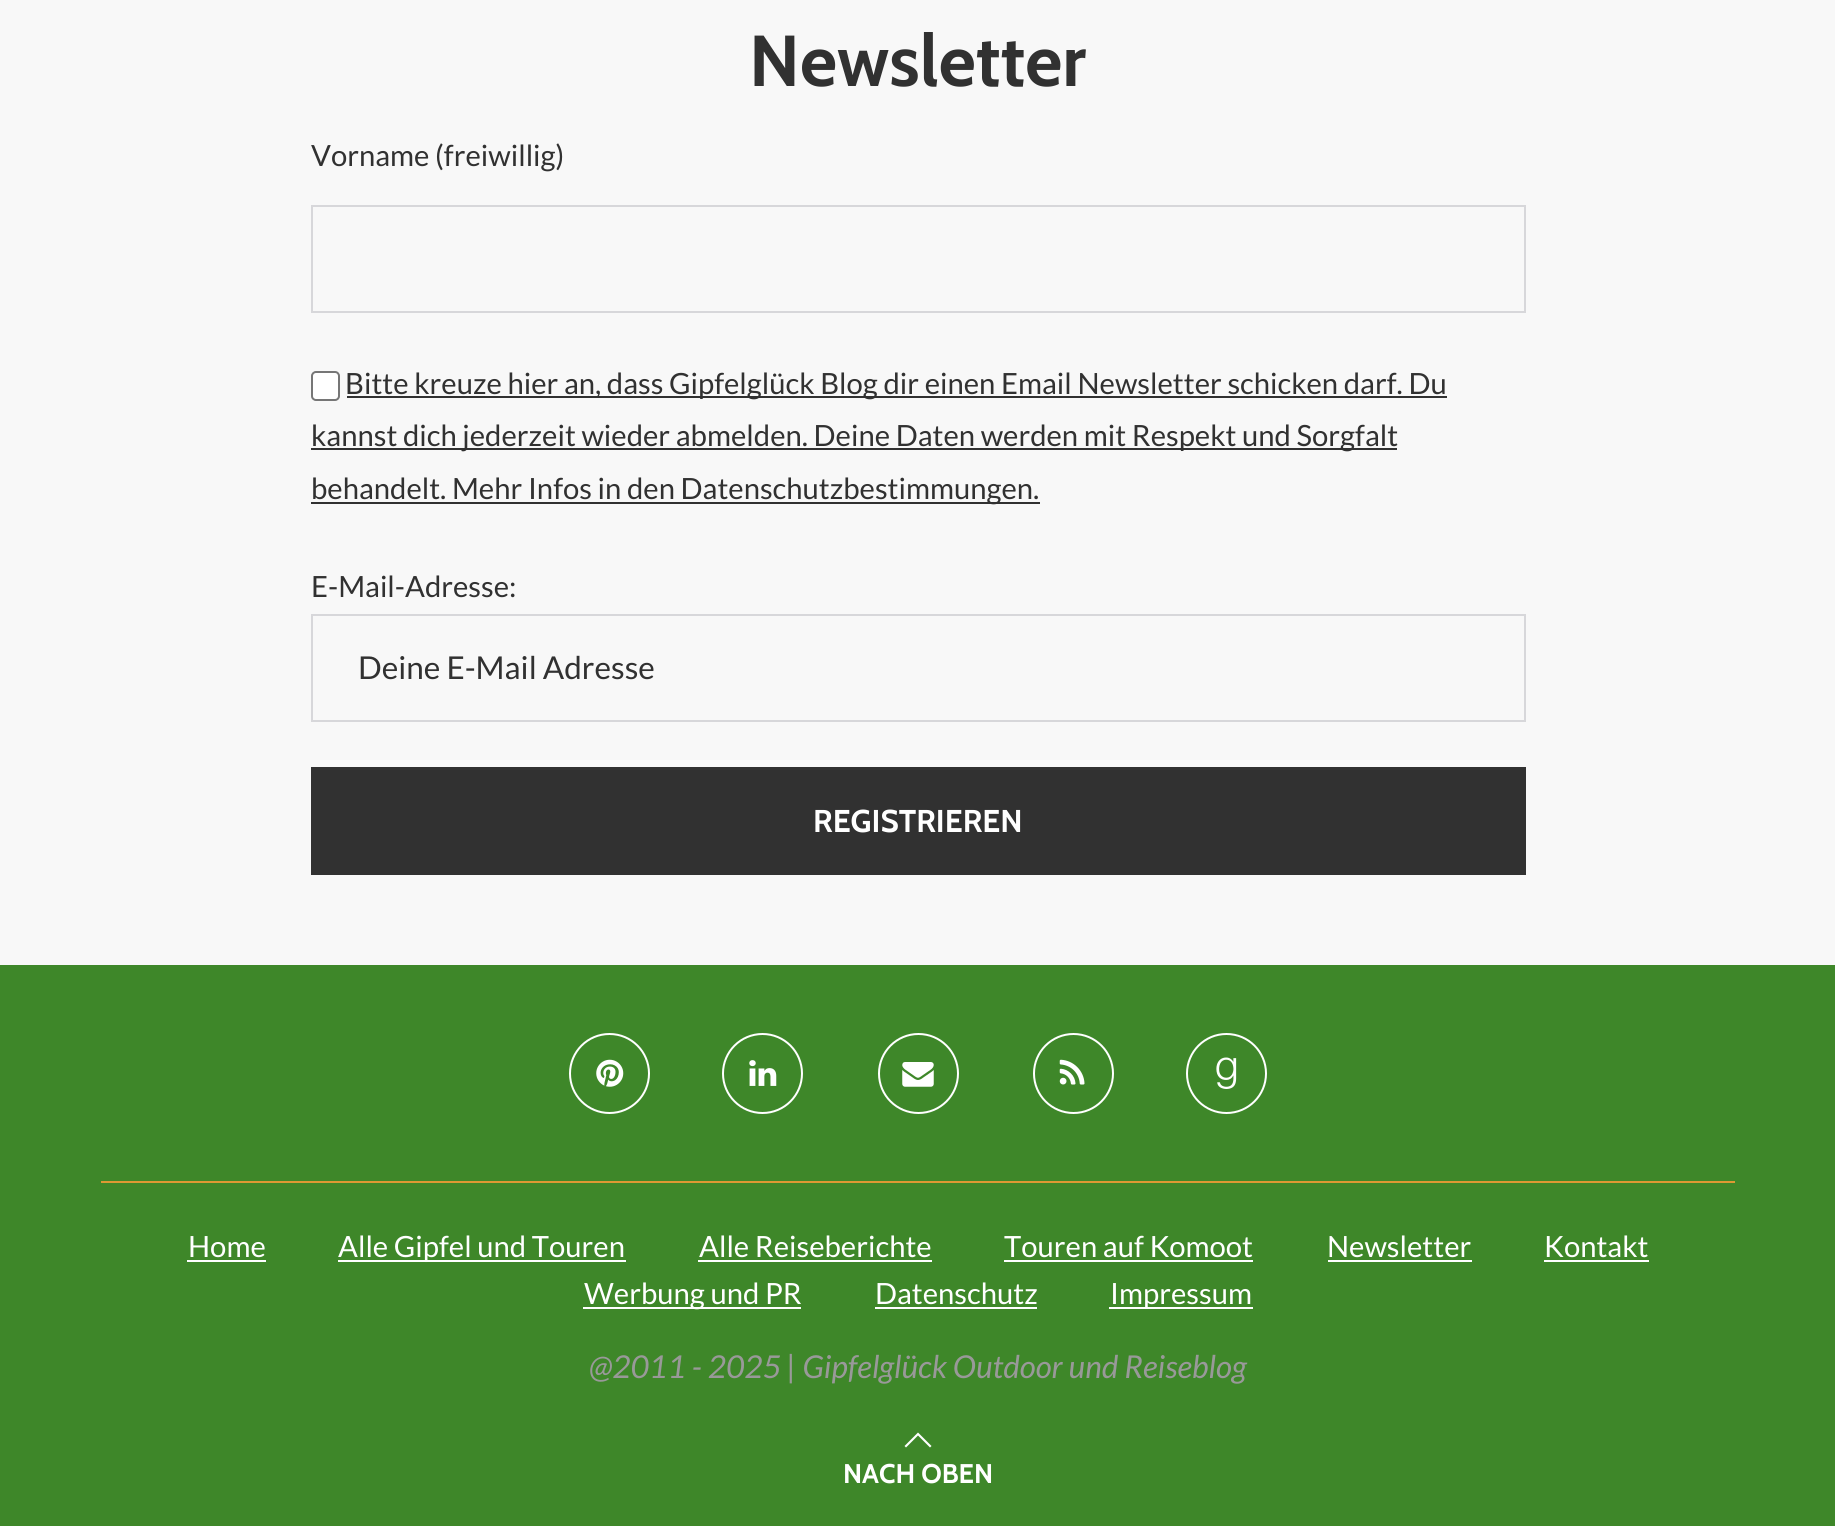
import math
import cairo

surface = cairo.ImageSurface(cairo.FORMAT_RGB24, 1835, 1526)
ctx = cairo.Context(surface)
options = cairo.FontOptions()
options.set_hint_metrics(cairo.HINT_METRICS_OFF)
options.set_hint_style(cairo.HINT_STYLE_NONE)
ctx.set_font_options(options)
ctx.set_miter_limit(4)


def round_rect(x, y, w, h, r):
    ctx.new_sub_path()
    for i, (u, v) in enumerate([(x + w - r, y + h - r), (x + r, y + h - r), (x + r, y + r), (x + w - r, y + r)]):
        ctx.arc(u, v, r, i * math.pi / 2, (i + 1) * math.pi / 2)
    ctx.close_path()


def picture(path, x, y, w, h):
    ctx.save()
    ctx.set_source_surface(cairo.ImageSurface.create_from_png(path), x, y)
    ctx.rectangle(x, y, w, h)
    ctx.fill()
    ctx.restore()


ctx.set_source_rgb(0.969, 0.969, 0.969)
ctx.paint()
ctx.select_font_face("Cabin", cairo.FONT_SLANT_NORMAL, cairo.FONT_WEIGHT_BOLD)
ctx.set_font_size(72)
ctx.set_source_rgb(0.192, 0.192, 0.192)
ctx.move_to(749, 86)
ctx.show_text("Newsletter")
ctx.select_font_face("Lato")
ctx.set_font_size(29.25)
ctx.move_to(311, 166)
ctx.show_text("Vorname (freiwillig)")
ctx.rectangle(312, 206, 1213, 106)
ctx.set_source_rgb(0.843, 0.843, 0.855)
ctx.stroke()
ctx.set_source_rgb(1, 1, 1)
round_rect(312, 372, 27, 28, 4)
ctx.fill_preserve()
ctx.set_source_rgb(0.463, 0.463, 0.463)
ctx.stroke()
ctx.set_source_rgb(0.192, 0.192, 0.192)
ctx.rectangle(347, 396, 1100, 2)
ctx.fill()
ctx.move_to(345, 394)
ctx.show_text("Bitte kreuze hier an, dass Gipfelglück Blog dir einen Email Newsletter schicken darf. Du")
ctx.rectangle(311, 448, 1086, 2)
ctx.fill()
ctx.move_to(311, 446)
ctx.show_text("kannst dich jederzeit wieder abmelden. Deine Daten werden mit Respekt und Sorgfalt")
ctx.rectangle(311, 502, 729, 2)
ctx.fill()
ctx.move_to(311, 499)
ctx.show_text("behandelt. Mehr Infos in den Datenschutzbestimmungen.")
ctx.move_to(311, 597)
ctx.show_text("E-Mail-Adresse:")
ctx.rectangle(312, 615, 1213, 106)
ctx.set_source_rgb(0.843, 0.843, 0.855)
ctx.stroke()
ctx.set_font_size(31.5)
ctx.set_source_rgb(0.192, 0.192, 0.192)
ctx.move_to(358, 679)
ctx.show_text("Deine E-Mail Adresse")
ctx.rectangle(311, 767, 1215, 108)
ctx.fill()
ctx.select_font_face("Cabin", cairo.FONT_SLANT_NORMAL, cairo.FONT_WEIGHT_BOLD)
ctx.set_source_rgb(1, 1, 1)
ctx.move_to(813, 832)
ctx.show_text("REGISTRIEREN")
ctx.set_source_rgb(0.243, 0.529, 0.161)
ctx.rectangle(0, 965, 1835, 561)
ctx.fill()
ctx.set_source_rgb(0.867, 0.6, 0.2)
ctx.rectangle(101, 1181, 1634, 2)
ctx.fill()
ctx.arc(609.5, 1073.5, 39.5, 0, 2 * math.pi)
ctx.set_source_rgb(1, 1, 1)
ctx.stroke()
picture("img1.png", 596, 1059, 28, 28)
ctx.arc(762.5, 1073.5, 39.5, 0, 2 * math.pi)
ctx.stroke()
picture("img2.png", 749, 1060, 28, 26)
ctx.arc(918.5, 1073.5, 39.5, 0, 2 * math.pi)
ctx.stroke()
picture("img3.png", 902, 1062, 32, 25)
ctx.arc(1073.5, 1073.5, 39.5, 0, 2 * math.pi)
ctx.stroke()
picture("img4.png", 1059, 1059, 26, 26)
ctx.arc(1226.5, 1073.5, 39.5, 0, 2 * math.pi)
ctx.stroke()
picture("img5.png", 1216, 1057, 21, 32)
ctx.select_font_face("Lato")
ctx.set_font_size(29.25)
ctx.move_to(188, 1257)
ctx.show_text("Home")
ctx.rectangle(187, 1260, 79, 2)
ctx.fill()
ctx.rectangle(338, 1260, 288, 2)
ctx.fill()
ctx.move_to(338, 1257)
ctx.show_text("Alle Gipfel und Touren")
ctx.move_to(699, 1257)
ctx.show_text("Alle Reiseberichte")
ctx.rectangle(698, 1260, 234, 2)
ctx.fill()
ctx.move_to(1004, 1257)
ctx.show_text("Touren auf Komoot")
ctx.rectangle(1004, 1260, 249, 2)
ctx.fill()
ctx.move_to(1327, 1257)
ctx.show_text("Newsletter")
ctx.rectangle(1328, 1260, 144, 2)
ctx.fill()
ctx.move_to(1544, 1257)
ctx.show_text("Kontakt")
ctx.rectangle(1544, 1260, 105, 2)
ctx.fill()
ctx.rectangle(583, 1307, 218, 2)
ctx.fill()
ctx.move_to(584, 1304)
ctx.show_text("Werbung und PR")
ctx.move_to(875, 1304)
ctx.show_text("Datenschutz")
ctx.rectangle(875, 1307, 162, 2)
ctx.fill()
ctx.rectangle(1109, 1307, 144, 2)
ctx.fill()
ctx.move_to(1110, 1304)
ctx.show_text("Impressum")
ctx.select_font_face("Lato", cairo.FONT_SLANT_ITALIC)
ctx.set_font_size(31.5)
ctx.set_source_rgb(0.6, 0.6, 0.6)
ctx.move_to(589, 1378)
ctx.show_text("@2011 - 2025 | Gipfelglück Outdoor und Reiseblog")
ctx.set_source_rgb(1, 1, 1)
ctx.new_path()
ctx.move_to(918, 1432.5)
ctx.line_to(904.5, 1446)
ctx.line_to(906, 1447.5)
ctx.line_to(918, 1435.5)
ctx.line_to(930, 1447.5)
ctx.line_to(931.5, 1446)
ctx.close_path()
ctx.fill()
ctx.select_font_face("Cabin", cairo.FONT_SLANT_NORMAL, cairo.FONT_WEIGHT_BOLD)
ctx.set_font_size(27)
ctx.move_to(843, 1483)
ctx.show_text("NACH OBEN")
surface.write_to_png("page.png")
